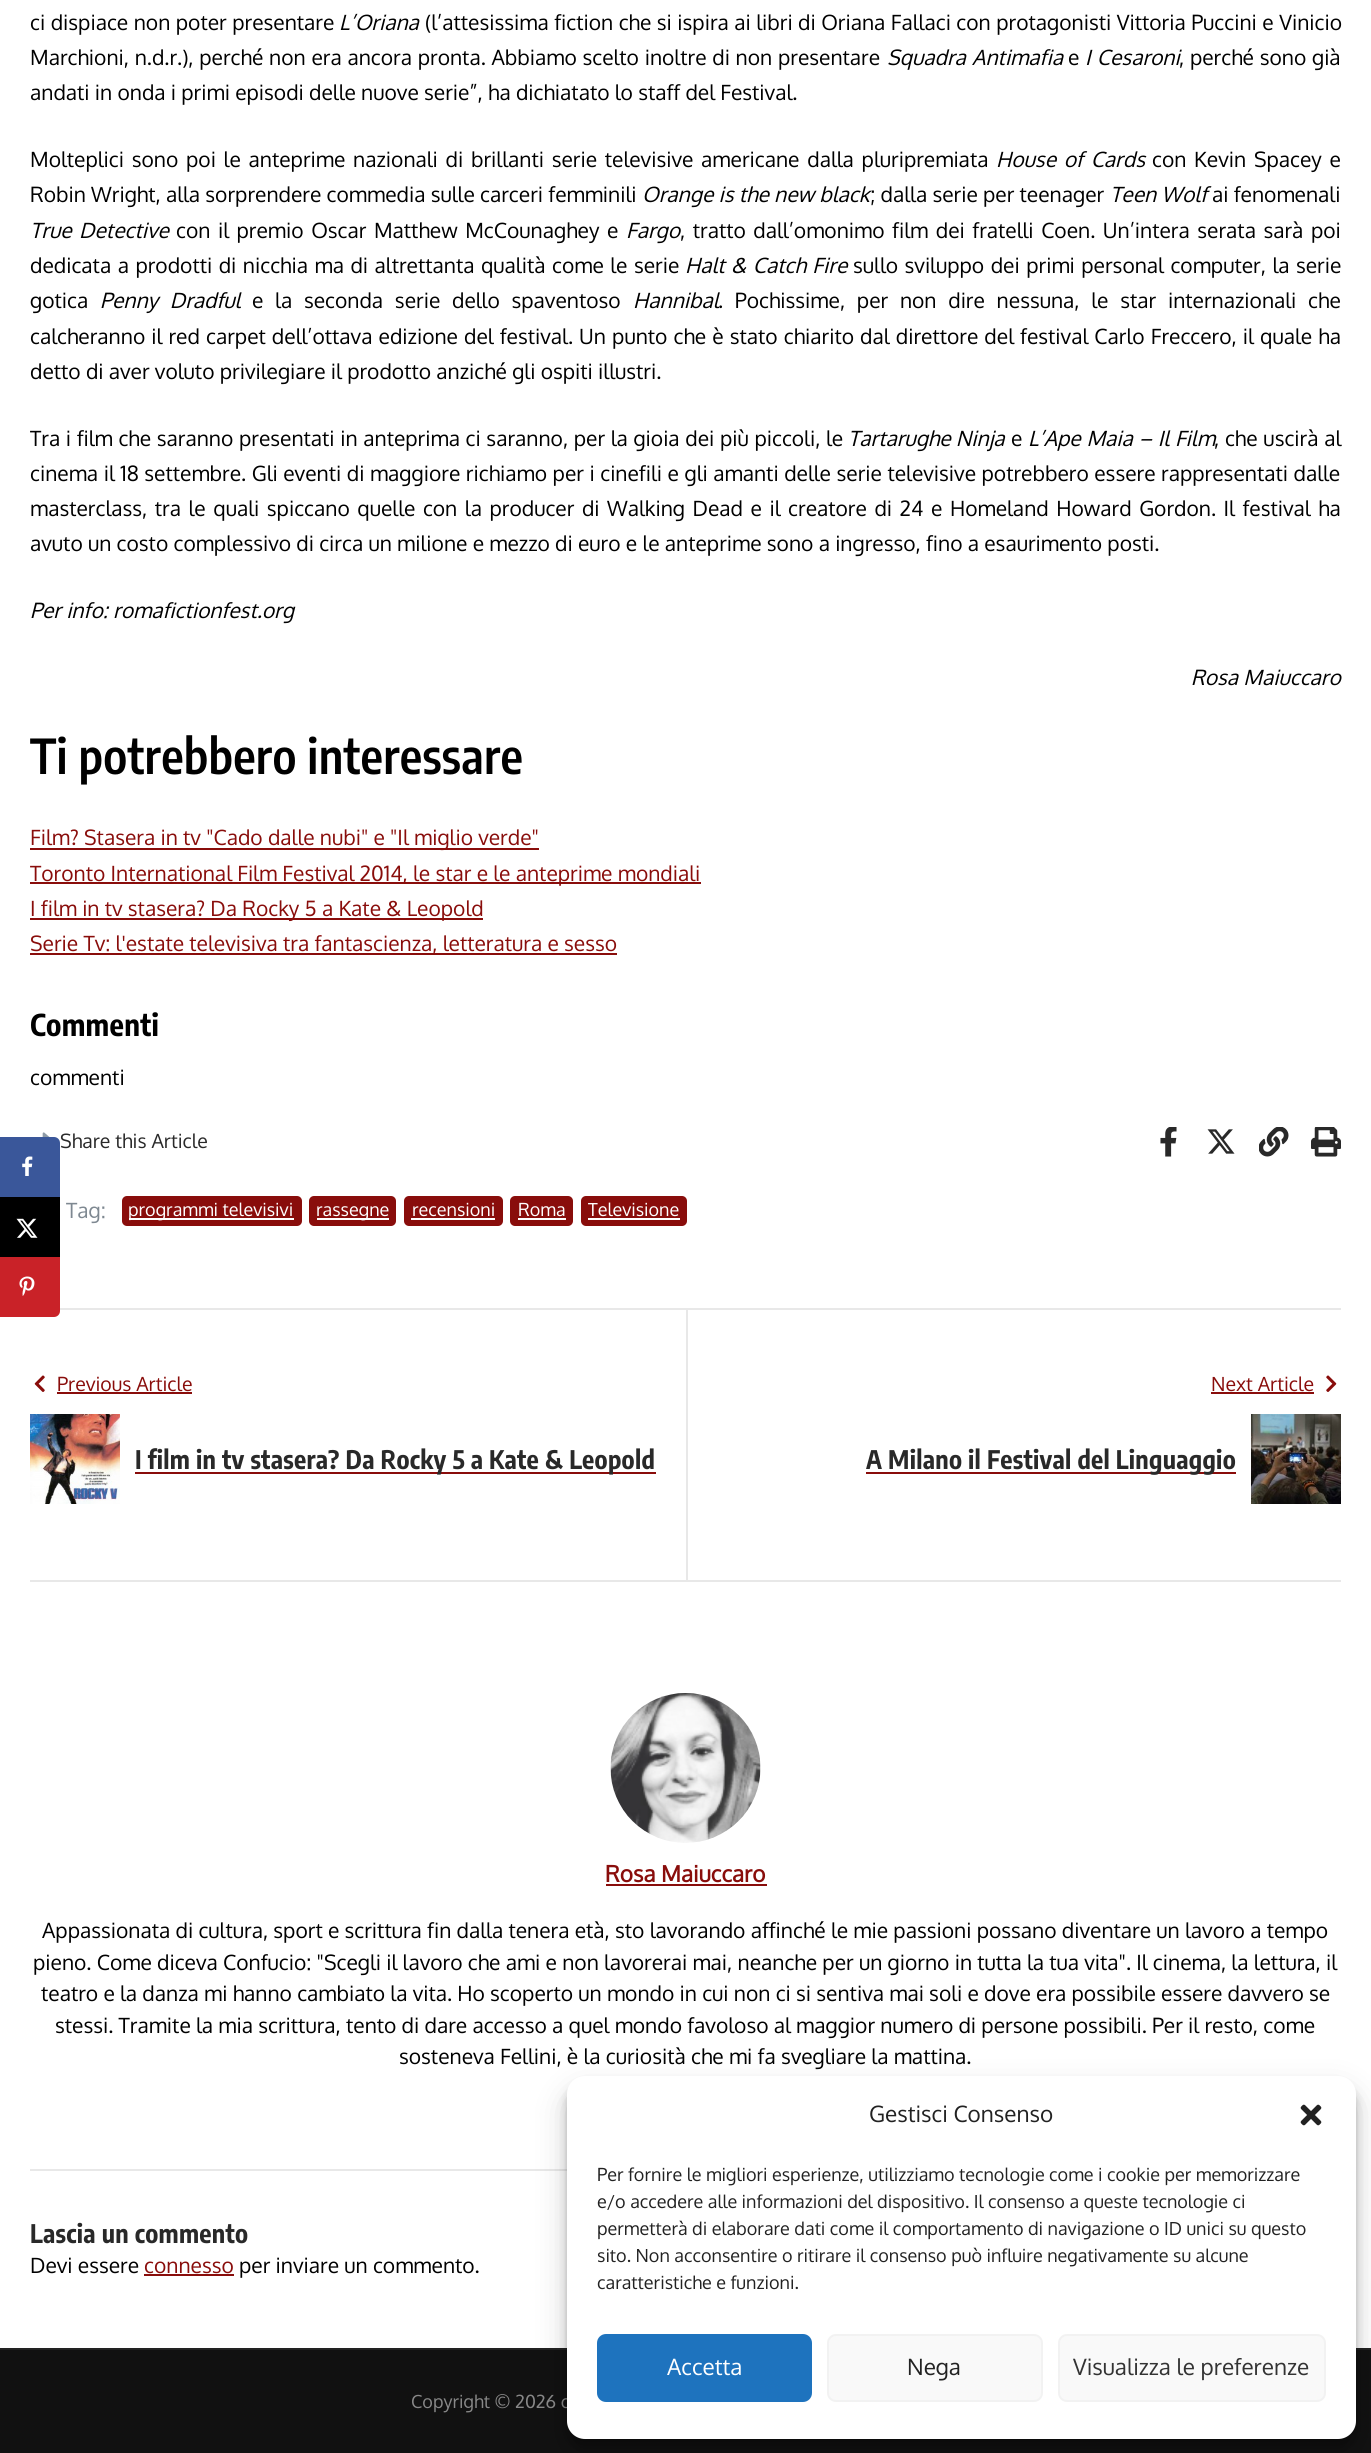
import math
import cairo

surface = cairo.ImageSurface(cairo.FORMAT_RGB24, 1371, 2453)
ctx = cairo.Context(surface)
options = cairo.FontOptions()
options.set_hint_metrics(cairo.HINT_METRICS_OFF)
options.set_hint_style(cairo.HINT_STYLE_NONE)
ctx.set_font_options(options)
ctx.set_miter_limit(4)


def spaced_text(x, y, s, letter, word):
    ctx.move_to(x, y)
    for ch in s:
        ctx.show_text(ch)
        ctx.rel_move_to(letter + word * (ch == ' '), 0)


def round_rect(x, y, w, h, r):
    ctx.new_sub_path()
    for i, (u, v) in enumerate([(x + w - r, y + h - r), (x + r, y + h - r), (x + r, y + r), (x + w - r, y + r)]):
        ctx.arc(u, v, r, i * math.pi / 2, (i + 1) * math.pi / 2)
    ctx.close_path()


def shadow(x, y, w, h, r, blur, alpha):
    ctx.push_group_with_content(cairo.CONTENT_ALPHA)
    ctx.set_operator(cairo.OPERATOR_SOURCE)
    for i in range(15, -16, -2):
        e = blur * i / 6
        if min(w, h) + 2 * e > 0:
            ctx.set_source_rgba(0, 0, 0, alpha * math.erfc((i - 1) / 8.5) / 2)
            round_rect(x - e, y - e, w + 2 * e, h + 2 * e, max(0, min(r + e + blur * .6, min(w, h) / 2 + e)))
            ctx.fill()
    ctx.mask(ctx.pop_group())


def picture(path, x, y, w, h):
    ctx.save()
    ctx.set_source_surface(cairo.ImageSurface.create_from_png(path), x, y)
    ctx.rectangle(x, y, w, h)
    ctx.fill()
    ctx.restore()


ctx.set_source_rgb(1, 1, 1)
ctx.paint()
ctx.select_font_face("Oxygen")
ctx.set_font_size(21)
ctx.set_source_rgb(0, 0, 0)
spaced_text(30, 30, "ci dispiace non poter presentare", 0, 0.25)
ctx.select_font_face("Oxygen", cairo.FONT_SLANT_ITALIC)
ctx.move_to(339, 30)
ctx.show_text("L’Oriana")
ctx.select_font_face("Oxygen")
spaced_text(425, 30, "(l’attesissima fiction che si ispira ai libri", 0, 0.25)
spaced_text(798, 30, "di Oriana Fallaci con protagonisti Vittoria Puccini e Vinicio", 0, 0.25)
spaced_text(30, 65, "Marchioni, n.d.r.), perché non era ancora pronta. Abbiamo scelto inoltre di non presentare", 0, 0.5)
ctx.select_font_face("Oxygen", cairo.FONT_SLANT_ITALIC)
spaced_text(887, 65, "Squadra Antimafia", 0, 1)
ctx.select_font_face("Oxygen")
ctx.move_to(1068, 65)
ctx.show_text("e")
ctx.select_font_face("Oxygen", cairo.FONT_SLANT_ITALIC)
spaced_text(1085, 65, "I Cesaroni", 0, 1)
ctx.select_font_face("Oxygen")
spaced_text(1179, 65, ", perché sono già", 0, 0.5)
ctx.move_to(30, 100)
ctx.show_text("andati in onda i primi episodi delle nuove serie”, ha dichiatato lo staff del Festival.")
spaced_text(30, 167, "Molteplici sono poi le anteprime nazionali di brillanti serie televisive americane dalla pluripremiata", 0, 2.5)
ctx.select_font_face("Oxygen", cairo.FONT_SLANT_ITALIC)
spaced_text(996, 167, "House of Cards", 0, 2.5)
ctx.select_font_face("Oxygen")
spaced_text(1152, 167, "con Kevin Spacey e", 0, 2.5)
ctx.move_to(30, 202)
ctx.show_text("Robin Wright, alla sorprendere commedia sulle carceri femminili")
ctx.select_font_face("Oxygen", cairo.FONT_SLANT_ITALIC)
ctx.move_to(642, 202)
ctx.show_text("Orange is the new black")
ctx.select_font_face("Oxygen")
ctx.move_to(870, 202)
ctx.show_text("; dalla serie per teenager")
ctx.select_font_face("Oxygen", cairo.FONT_SLANT_ITALIC)
ctx.move_to(1110, 202)
ctx.show_text("Teen Wolf")
ctx.select_font_face("Oxygen")
ctx.move_to(1212, 202)
ctx.show_text("ai fenomenali")
ctx.select_font_face("Oxygen", cairo.FONT_SLANT_ITALIC)
spaced_text(30, 238, "True Detective", 0, 2.3)
ctx.select_font_face("Oxygen")
spaced_text(176, 238, "con il premio Oscar Matthew McCounaghey e", 0, 2.3)
ctx.select_font_face("Oxygen", cairo.FONT_SLANT_ITALIC)
ctx.move_to(626, 238)
ctx.show_text("Fargo")
ctx.select_font_face("Oxygen")
spaced_text(680, 238, ", tratto dall’omonimo film dei fratelli Coen. Un’intera serata sarà poi", 0, 2.3)
spaced_text(30, 273, "dedicata a prodotti di nicchia ma di altrettanta qualità come le serie", 0, 1.25)
ctx.select_font_face("Oxygen", cairo.FONT_SLANT_ITALIC)
spaced_text(685, 273, "Halt & Catch Fire", 0, 1.25)
ctx.select_font_face("Oxygen")
spaced_text(853, 273, "sullo sviluppo dei primi personal computer, la serie", 0, 1.25)
ctx.move_to(30, 308)
ctx.show_text("gotica")
ctx.select_font_face("Oxygen", cairo.FONT_SLANT_ITALIC)
spaced_text(100, 308, "Penny Dradful", 0, 6.5)
ctx.select_font_face("Oxygen")
spaced_text(252, 308, "e la seconda serie dello spaventoso", 0, 6.5)
ctx.select_font_face("Oxygen", cairo.FONT_SLANT_ITALIC)
ctx.move_to(633, 308)
ctx.show_text("Hannibal")
ctx.select_font_face("Oxygen")
spaced_text(718, 308, ". Pochissime, per non dire nessuna, le star internazionali che", 0, 6.5)
spaced_text(30, 344, "calcheranno il red carpet dell’ottava edizione del festival. Un punto che è stato chiarito dal direttore del festival Carlo Freccero, il quale ha", 0, 0.85)
ctx.move_to(30, 379)
ctx.show_text("detto di aver voluto privilegiare il prodotto anziché gli ospiti illustri.")
spaced_text(30, 446, "Tra i film che saranno presentati in anteprima ci saranno, per la gioia dei più piccoli, le", 0, 0.4)
ctx.select_font_face("Oxygen", cairo.FONT_SLANT_ITALIC)
ctx.move_to(848, 446)
ctx.show_text("Tartarughe Ninja")
ctx.select_font_face("Oxygen")
ctx.move_to(1011, 446)
ctx.show_text("e")
ctx.select_font_face("Oxygen", cairo.FONT_SLANT_ITALIC)
spaced_text(1028, 446, "L’Ape Maia – Il Film", 0, 0.5)
ctx.select_font_face("Oxygen")
spaced_text(1214, 446, ", che uscirà al", 0, 0.5)
spaced_text(30, 481, "cinema il 18 settembre. Gli eventi di maggiore richiamo per i cinefili e gli amanti delle serie televisive potrebbero essere rappresentati dalle", 0, 0.3)
spaced_text(30, 516, "masterclass, tra le quali spiccano quelle con la producer di Walking Dead e il creatore di 24 e Homeland Howard Gordon. Il festival ha", 0, 2.3)
ctx.move_to(30, 551)
ctx.show_text("avuto un costo complessivo di circa un milione e mezzo di euro e le anteprime sono a ingresso, fino a esaurimento posti.")
ctx.select_font_face("Oxygen", cairo.FONT_SLANT_ITALIC)
ctx.move_to(30, 618)
ctx.show_text("Per info: romafictionfest.org")
ctx.move_to(1191, 685)
ctx.show_text("Rosa Maiuccaro")
ctx.select_font_face("Encode Sans Condensed SemiBold")
ctx.set_font_size(48)
spaced_text(30, 774, "Ti potrebbero interessare", 0.3, 0)
ctx.set_source_rgb(0.537, 0.051, 0.043)
ctx.rectangle(30, 848, 509, 2)
ctx.fill()
ctx.select_font_face("Oxygen")
ctx.set_font_size(21)
ctx.move_to(30, 845)
ctx.show_text("Film? Stasera in tv \"Cado dalle nubi\" e \"Il miglio verde\"")
ctx.rectangle(30, 882, 671, 2)
ctx.fill()
ctx.move_to(30, 881)
ctx.show_text("Toronto International Film Festival 2014, le star e le anteprime mondiali")
ctx.rectangle(30, 918, 453, 2)
ctx.fill()
ctx.move_to(30, 916)
ctx.show_text("I film in tv stasera? Da Rocky 5 a Kate & Leopold")
ctx.rectangle(30, 953, 587, 2)
ctx.fill()
ctx.move_to(30, 951)
ctx.show_text("Serie Tv: l'estate televisiva tra fantascienza, letteratura e sesso")
ctx.select_font_face("Encode Sans Condensed", cairo.FONT_SLANT_NORMAL, cairo.FONT_WEIGHT_BOLD)
ctx.set_font_size(30)
ctx.set_source_rgb(0, 0, 0)
spaced_text(30, 1036, "Commenti", 0.3, 0)
ctx.select_font_face("Oxygen")
ctx.set_font_size(21)
ctx.move_to(30, 1085)
ctx.show_text("commenti")
picture("img1.png", 42, 1132, 8, 5)
ctx.set_font_size(19.5)
ctx.set_source_rgb(0.161, 0.161, 0.161)
ctx.move_to(60, 1148)
ctx.show_text("Share this Article")
picture("img2.png", 1160, 1127, 17, 30)
picture("img3.png", 1207, 1129, 28, 25)
picture("img4.png", 1259, 1127, 30, 30)
picture("img5.png", 1311, 1127, 30, 30)
ctx.set_font_size(21)
ctx.set_source_rgb(0.494, 0.533, 0.569)
ctx.move_to(66, 1218)
ctx.show_text("Tag:")
ctx.set_source_rgb(0.537, 0.051, 0.043)
round_rect(122, 1196, 180, 30, 5)
ctx.fill()
ctx.set_source_rgb(1, 1, 1)
ctx.rectangle(129, 1218, 165, 2)
ctx.fill()
ctx.set_font_size(18)
ctx.move_to(128, 1216)
ctx.show_text("programmi televisivi")
ctx.set_source_rgb(0.537, 0.051, 0.043)
round_rect(309, 1196, 87, 30, 5)
ctx.fill()
ctx.set_source_rgb(1, 1, 1)
ctx.rectangle(317, 1218, 72, 2)
ctx.fill()
ctx.move_to(316, 1216)
ctx.show_text("rassegne")
ctx.set_source_rgb(0.537, 0.051, 0.043)
round_rect(404, 1196, 99, 30, 5)
ctx.fill()
ctx.set_source_rgb(1, 1, 1)
ctx.move_to(412, 1216)
ctx.show_text("recensioni")
ctx.rectangle(411, 1218, 84, 2)
ctx.fill()
ctx.set_source_rgb(0.537, 0.051, 0.043)
round_rect(510, 1196, 63, 30, 5)
ctx.fill()
ctx.set_source_rgb(1, 1, 1)
ctx.move_to(518, 1216)
ctx.show_text("Roma")
ctx.rectangle(518, 1218, 48, 2)
ctx.fill()
ctx.set_source_rgb(0.537, 0.051, 0.043)
round_rect(581, 1196, 106, 30, 5)
ctx.fill()
ctx.set_source_rgb(1, 1, 1)
ctx.move_to(588, 1216)
ctx.show_text("Televisione")
ctx.rectangle(588, 1218, 92, 2)
ctx.fill()
ctx.set_source_rgb(0.91, 0.91, 0.91)
ctx.rectangle(60, 1308, 1281, 2)
ctx.fill()
ctx.rectangle(30, 1580, 1311, 2)
ctx.fill()
picture("img6.png", 34, 1375, 11, 17)
ctx.set_font_size(19.5)
ctx.set_source_rgb(0.537, 0.051, 0.043)
ctx.move_to(57, 1391)
ctx.show_text("Previous Article")
ctx.rectangle(57, 1392, 135, 2)
ctx.fill()
picture("img7.png", 30, 1414, 90, 90)
ctx.rectangle(135, 1472, 521, 2)
ctx.fill()
ctx.select_font_face("Encode Sans Condensed", cairo.FONT_SLANT_NORMAL, cairo.FONT_WEIGHT_BOLD)
ctx.set_font_size(25.5)
ctx.set_source_rgb(0.161, 0.161, 0.161)
spaced_text(135, 1469, "I film in tv stasera? Da Rocky 5 a Kate & Leopold", 0.3, 0)
ctx.set_source_rgb(0.91, 0.91, 0.91)
ctx.rectangle(686, 1310, 2, 270)
ctx.fill()
ctx.select_font_face("Oxygen")
ctx.set_font_size(19.5)
ctx.set_source_rgb(0.537, 0.051, 0.043)
ctx.move_to(1211, 1391)
ctx.show_text("Next Article")
ctx.rectangle(1211, 1392, 103, 2)
ctx.fill()
picture("img8.png", 1326, 1375, 11, 17)
ctx.rectangle(866, 1472, 370, 2)
ctx.fill()
ctx.select_font_face("Encode Sans Condensed", cairo.FONT_SLANT_NORMAL, cairo.FONT_WEIGHT_BOLD)
ctx.set_font_size(25.5)
ctx.set_source_rgb(0.161, 0.161, 0.161)
spaced_text(866, 1469, "A Milano il Festival del Linguaggio", 0.3, 0)
picture("img9.png", 1251, 1414, 90, 90)
ctx.set_source_rgb(0.91, 0.91, 0.91)
ctx.rectangle(30, 2169, 537, 2)
ctx.fill()
picture("img10.png", 610, 1693, 151, 150)
ctx.select_font_face("Oxygen", cairo.FONT_SLANT_NORMAL, cairo.FONT_WEIGHT_BOLD)
ctx.set_font_size(22.5)
ctx.set_source_rgb(0.537, 0.051, 0.043)
ctx.move_to(605, 1882)
ctx.show_text("Rosa Maiuccaro")
ctx.rectangle(606, 1884, 161, 2)
ctx.fill()
ctx.select_font_face("Oxygen")
ctx.set_font_size(21)
ctx.set_source_rgb(0, 0, 0)
ctx.move_to(42, 1938)
ctx.show_text("Appassionata di cultura, sport e scrittura fin dalla tenera età, sto lavorando affinché le mie passioni possano diventare un lavoro a tempo")
ctx.move_to(33, 1970)
ctx.show_text("pieno. Come diceva Confucio: \"Scegli il lavoro che ami e non lavorerai mai, neanche per un giorno in tutta la tua vita\". Il cinema, la lettura, il")
ctx.move_to(41, 2001)
ctx.show_text("teatro e la danza mi hanno cambiato la vita. Ho scoperto un mondo in cui non ci si sentiva mai soli e dove era possibile essere davvero se")
ctx.move_to(55, 2033)
ctx.show_text("stessi. Tramite la mia scrittura, tento di dare accesso a quel mondo favoloso al maggior numero di persone possibili. Per il resto, come")
ctx.move_to(399, 2064)
ctx.show_text("sosteneva Fellini, è la curiosità che mi fa svegliare la mattina.")
ctx.select_font_face("Encode Sans Condensed", cairo.FONT_SLANT_NORMAL, cairo.FONT_WEIGHT_BOLD)
ctx.set_font_size(25.5)
ctx.set_source_rgb(0.161, 0.161, 0.161)
spaced_text(30, 2243, "Lascia un commento", 0.3, 0)
ctx.select_font_face("Oxygen")
ctx.set_font_size(21)
ctx.set_source_rgb(0, 0, 0)
ctx.move_to(30, 2273)
ctx.show_text("Devi essere")
ctx.set_source_rgb(0.537, 0.051, 0.043)
ctx.move_to(144, 2273)
ctx.show_text("connesso")
ctx.rectangle(144, 2274, 90, 2)
ctx.fill()
ctx.set_source_rgb(0, 0, 0)
ctx.move_to(239, 2273)
ctx.show_text("per inviare un commento.")
ctx.set_source_rgb(0.067, 0.067, 0.067)
ctx.rectangle(0, 2350, 1371, 103)
ctx.fill()
ctx.set_source_rgb(0.133, 0.133, 0.133)
ctx.rectangle(0, 2348, 1371, 2)
ctx.fill()
ctx.set_font_size(18)
ctx.set_source_rgb(0.533, 0.533, 0.533)
ctx.move_to(411, 2408)
ctx.show_text("Copyright © 2026 c")
ctx.set_source_rgb(0.227, 0.341, 0.604)
ctx.new_path()
ctx.move_to(1.5, 1138.5)
ctx.line_to(54, 1138.5)
ctx.curve_to(56.5, 1138.5, 58.5, 1140.5, 58.5, 1143)
ctx.line_to(58.5, 1195.5)
ctx.line_to(1.5, 1195.5)
ctx.close_path()
ctx.fill_preserve()
ctx.set_line_width(3)
ctx.stroke()
picture("img11.png", 22, 1156, 11, 20)
ctx.set_source_rgb(0, 0, 0)
ctx.rectangle(0, 1197, 60, 60)
ctx.fill()
picture("img12.png", 16, 1218, 22, 20)
ctx.set_source_rgb(0.788, 0.133, 0.157)
ctx.new_path()
ctx.move_to(1.5, 1258.5)
ctx.line_to(58.5, 1258.5)
ctx.line_to(58.5, 1311)
ctx.curve_to(58.5, 1313.5, 56.5, 1315.5, 54, 1315.5)
ctx.line_to(1.5, 1315.5)
ctx.close_path()
ctx.fill_preserve()
ctx.stroke()
picture("img13.png", 19, 1276, 16, 20)
ctx.set_source_rgb(0, 0, 0)
shadow(567, 2085, 789, 363, 18, 4.5, 0.23)
shadow(567, 2091, 789, 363, 18, 15, 0.19)
ctx.set_source_rgb(1, 1, 1)
round_rect(567, 2076, 789, 363, 18)
ctx.fill()
ctx.set_font_size(22.5)
ctx.set_source_rgb(0.133, 0.133, 0.133)
ctx.move_to(869, 2122)
ctx.show_text("Gestisci Consenso")
picture("img14.png", 1300, 2104, 22, 22)
ctx.set_font_size(18)
ctx.move_to(597, 2181)
ctx.show_text("Per fornire le migliori esperienze, utilizziamo tecnologie come i cookie per memorizzare")
ctx.move_to(597, 2208)
ctx.show_text("e/o accedere alle informazioni del dispositivo. Il consenso a queste tecnologie ci")
ctx.move_to(597, 2235)
ctx.show_text("permetterà di elaborare dati come il comportamento di navigazione o ID unici su questo")
ctx.move_to(597, 2262)
ctx.show_text("sito. Non acconsentire o ritirare il consenso può influire negativamente su alcune")
ctx.move_to(597, 2289)
ctx.show_text("caratteristiche e funzioni.")
ctx.set_source_rgb(0.118, 0.451, 0.745)
round_rect(598, 2335, 213, 66, 8)
ctx.fill_preserve()
ctx.set_line_width(2)
ctx.stroke()
ctx.set_font_size(22.5)
ctx.set_source_rgb(1, 1, 1)
ctx.move_to(667, 2375)
ctx.show_text("Accetta")
ctx.set_source_rgb(0.976, 0.976, 0.976)
round_rect(828, 2335, 214, 66, 8)
ctx.fill_preserve()
ctx.set_source_rgb(0.949, 0.949, 0.949)
ctx.stroke()
ctx.set_source_rgb(0.133, 0.133, 0.133)
ctx.move_to(907, 2375)
ctx.show_text("Nega")
ctx.set_source_rgb(0.976, 0.976, 0.976)
round_rect(1059, 2335, 266, 66, 8)
ctx.fill_preserve()
ctx.set_source_rgb(0.949, 0.949, 0.949)
ctx.stroke()
ctx.set_source_rgb(0.2, 0.2, 0.2)
ctx.move_to(1073, 2375)
ctx.show_text("Visualizza le preferenze")
surface.write_to_png("page.png")
